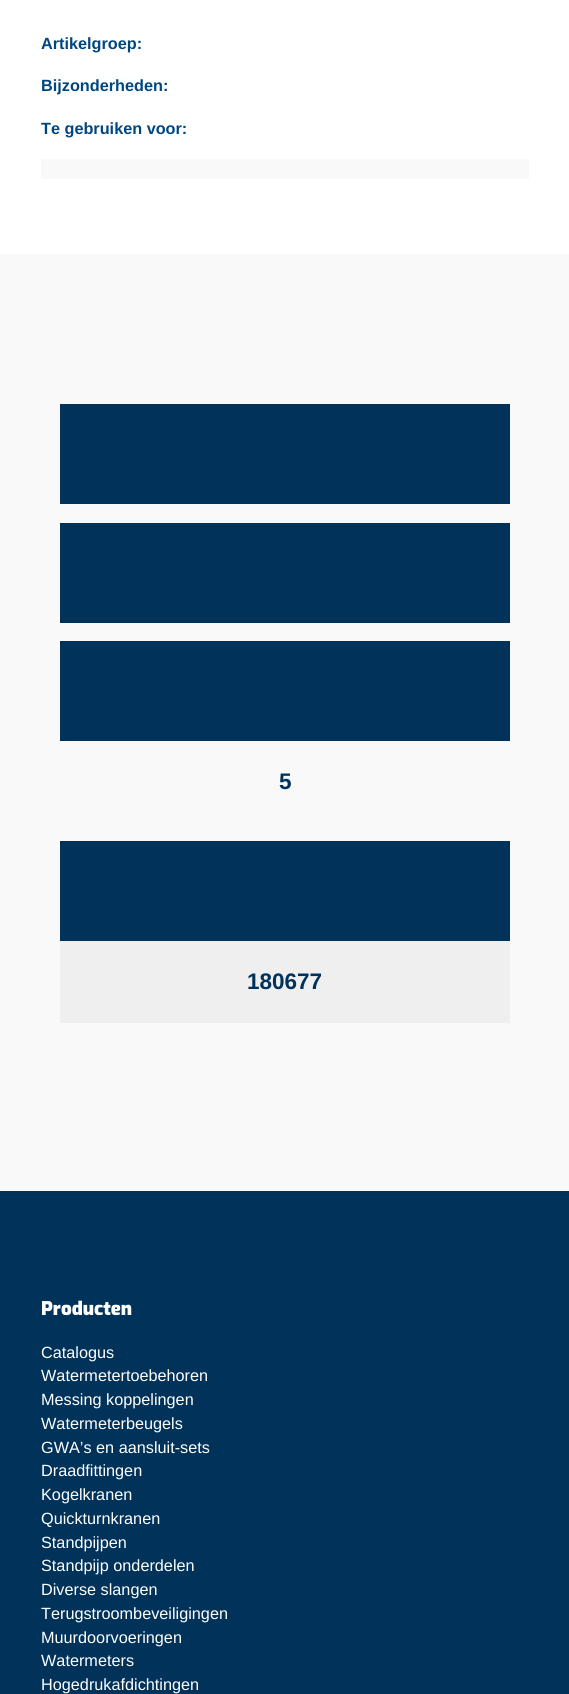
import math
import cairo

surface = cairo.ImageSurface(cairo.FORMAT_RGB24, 569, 1694)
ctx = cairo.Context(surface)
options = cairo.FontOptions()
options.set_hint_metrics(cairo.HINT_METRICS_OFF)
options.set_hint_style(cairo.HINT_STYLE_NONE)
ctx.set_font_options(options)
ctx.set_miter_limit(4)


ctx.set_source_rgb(1, 1, 1)
ctx.paint()
ctx.select_font_face("Liberation Sans", cairo.FONT_SLANT_NORMAL, cairo.FONT_WEIGHT_BOLD)
ctx.set_font_size(16.25)
ctx.set_source_rgb(0, 0.275, 0.498)
ctx.move_to(41, 49)
ctx.show_text("Artikelgroep:")
ctx.move_to(41, 91)
ctx.show_text("Bijzonderheden:")
ctx.move_to(41, 134)
ctx.show_text("Te gebruiken voor:")
ctx.set_source_rgb(0.973, 0.973, 0.973)
ctx.rectangle(41, 159, 488, 20)
ctx.fill()
ctx.rectangle(0, 254, 569, 937)
ctx.fill()
ctx.set_source_rgb(0, 0.196, 0.353)
ctx.rectangle(60, 404, 450, 100)
ctx.fill()
ctx.rectangle(60, 523, 450, 100)
ctx.fill()
ctx.rectangle(60, 641, 450, 100)
ctx.fill()
ctx.set_font_size(22.5)
ctx.move_to(279, 789)
ctx.show_text("5")
ctx.rectangle(60, 841, 450, 100)
ctx.fill()
ctx.set_source_rgb(0.937, 0.937, 0.937)
ctx.rectangle(60, 941, 450, 82)
ctx.fill()
ctx.set_source_rgb(0, 0.196, 0.353)
ctx.move_to(247, 989)
ctx.show_text("180677")
ctx.rectangle(0, 1191, 569, 503)
ctx.fill()
ctx.select_font_face("Exo Black")
ctx.set_font_size(18.75)
ctx.set_source_rgb(1, 1, 1)
ctx.move_to(41, 1315)
ctx.show_text("Producten")
ctx.select_font_face("Liberation Sans")
ctx.set_font_size(16.25)
ctx.move_to(41, 1358)
ctx.show_text("Catalogus")
ctx.move_to(41, 1381)
ctx.show_text("Watermetertoebehoren")
ctx.move_to(41, 1405)
ctx.show_text("Messing koppelingen")
ctx.move_to(41, 1429)
ctx.show_text("Watermeterbeugels")
ctx.move_to(41, 1453)
ctx.show_text("GWA’s en aansluit-sets")
ctx.move_to(41, 1476)
ctx.show_text("Draadfittingen")
ctx.move_to(41, 1500)
ctx.show_text("Kogelkranen")
ctx.move_to(41, 1524)
ctx.show_text("Quickturnkranen")
ctx.move_to(41, 1548)
ctx.show_text("Standpijpen")
ctx.move_to(41, 1571)
ctx.show_text("Standpijp onderdelen")
ctx.move_to(41, 1595)
ctx.show_text("Diverse slangen")
ctx.move_to(41, 1619)
ctx.show_text("Terugstroombeveiligingen")
ctx.move_to(41, 1643)
ctx.show_text("Muurdoorvoeringen")
ctx.move_to(41, 1666)
ctx.show_text("Watermeters")
ctx.move_to(41, 1690)
ctx.show_text("Hogedrukafdichtingen")
surface.write_to_png("page.png")
